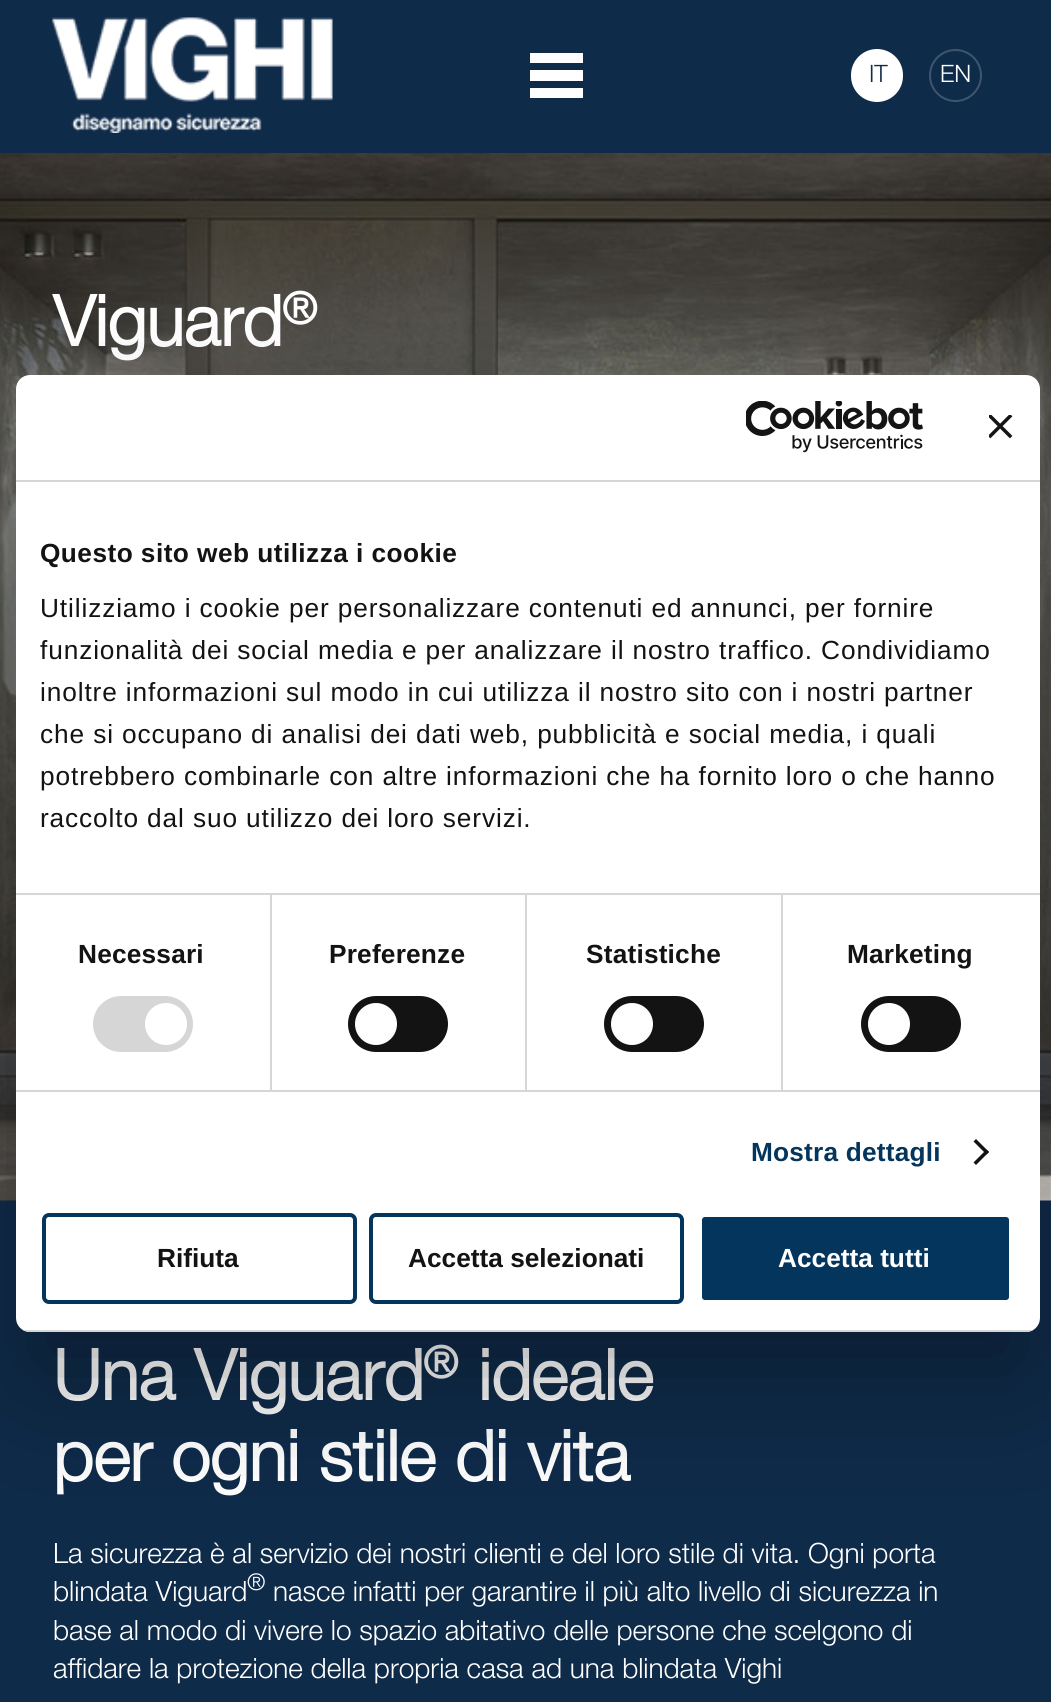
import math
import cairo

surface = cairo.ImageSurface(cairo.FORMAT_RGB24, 1051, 1702)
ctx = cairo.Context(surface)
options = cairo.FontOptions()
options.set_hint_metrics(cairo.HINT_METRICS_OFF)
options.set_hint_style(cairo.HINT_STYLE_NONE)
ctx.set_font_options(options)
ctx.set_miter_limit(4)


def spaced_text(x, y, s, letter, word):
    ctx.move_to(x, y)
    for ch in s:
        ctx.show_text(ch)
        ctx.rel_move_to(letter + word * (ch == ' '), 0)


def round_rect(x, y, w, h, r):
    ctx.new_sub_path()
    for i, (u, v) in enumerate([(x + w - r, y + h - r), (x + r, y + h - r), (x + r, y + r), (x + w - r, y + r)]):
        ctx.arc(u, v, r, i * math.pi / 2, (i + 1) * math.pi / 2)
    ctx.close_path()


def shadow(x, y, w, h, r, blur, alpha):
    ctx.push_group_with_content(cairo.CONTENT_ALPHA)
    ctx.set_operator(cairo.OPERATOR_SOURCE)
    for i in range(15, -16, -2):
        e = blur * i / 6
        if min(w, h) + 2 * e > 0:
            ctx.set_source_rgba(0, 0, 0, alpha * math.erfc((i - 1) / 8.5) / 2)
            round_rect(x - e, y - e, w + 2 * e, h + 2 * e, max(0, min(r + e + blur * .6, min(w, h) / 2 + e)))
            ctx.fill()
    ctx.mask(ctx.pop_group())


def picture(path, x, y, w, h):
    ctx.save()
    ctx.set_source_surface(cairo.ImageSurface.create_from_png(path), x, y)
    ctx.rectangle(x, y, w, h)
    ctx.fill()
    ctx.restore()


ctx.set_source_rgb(0.059, 0.169, 0.29)
ctx.paint()
picture("img1.png", 52, 17, 281, 116)
ctx.set_source_rgb(1, 1, 1)
ctx.rectangle(530, 53, 53, 10)
ctx.fill()
ctx.rectangle(530, 70, 53, 11)
ctx.fill()
ctx.rectangle(530, 88, 53, 10)
ctx.fill()
round_rect(852, 50, 50, 51, 25)
ctx.fill_preserve()
ctx.stroke()
ctx.select_font_face("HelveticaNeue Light")
ctx.set_font_size(24)
ctx.set_source_rgb(0.059, 0.169, 0.29)
ctx.move_to(869, 82)
ctx.show_text("IT")
ctx.new_path()
ctx.arc(955.5, 75.5, 25.5, 0, 2 * math.pi)
ctx.set_source_rgb(0.247, 0.333, 0.431)
ctx.stroke()
ctx.set_source_rgb(1, 1, 1)
ctx.move_to(940, 82)
ctx.show_text("EN")
picture("img2.png", 0, 153, 1051, 1048)
ctx.select_font_face("HelveticaNeue", cairo.FONT_SLANT_NORMAL, cairo.FONT_WEIGHT_BOLD)
ctx.set_font_size(70)
ctx.move_to(53, 346)
ctx.show_text("Viguard")
ctx.set_font_size(44)
ctx.move_to(282, 324)
ctx.show_text("®")
ctx.set_font_size(70)
ctx.move_to(53, 1400)
ctx.show_text("Una Viguard")
ctx.set_font_size(44)
ctx.move_to(423, 1378)
ctx.show_text("®")
ctx.set_font_size(70)
ctx.move_to(478, 1400)
ctx.show_text("ideale")
ctx.move_to(53, 1481)
ctx.show_text("per ogni stile di vita")
ctx.select_font_face("HelveticaNeue Light")
ctx.set_font_size(28)
ctx.move_to(53, 1563)
ctx.show_text("La sicurezza è al servizio dei nostri clienti e del loro stile di vita. Ogni porta")
ctx.move_to(53, 1601)
ctx.show_text("blindata Viguard")
ctx.set_font_size(23)
ctx.move_to(247, 1590)
ctx.show_text("®")
ctx.set_font_size(28)
ctx.move_to(273, 1601)
ctx.show_text("nasce infatti per garantire il più alto livello di sicurezza in")
ctx.move_to(53, 1640)
ctx.show_text("base al modo di vivere lo spazio abitativo delle persone che scelgono di")
ctx.move_to(53, 1678)
ctx.show_text("affidare la protezione della propria casa ad una blindata Vighi")
ctx.set_source_rgb(0, 0, 0)
shadow(16, 431, 1024, 957, 14, 59.5, 0.3)
ctx.set_source_rgb(1, 1, 1)
round_rect(16, 375, 1024, 957, 14)
ctx.fill()
ctx.set_source_rgb(0.839, 0.839, 0.839)
ctx.rectangle(16, 480, 1024, 2)
ctx.fill()
picture("img3.png", 746, 401, 177, 52)
picture("img4.png", 989, 415, 24, 24)
ctx.rectangle(270, 894, 2, 196)
ctx.fill()
ctx.rectangle(525, 894, 2, 196)
ctx.fill()
ctx.rectangle(781, 894, 2, 196)
ctx.fill()
ctx.rectangle(16, 893, 1024, 2)
ctx.fill()
ctx.select_font_face("Liberation Sans", cairo.FONT_SLANT_NORMAL, cairo.FONT_WEIGHT_BOLD)
ctx.set_font_size(26.25)
ctx.set_source_rgb(0.078, 0.078, 0.078)
spaced_text(40, 562, "Questo sito web utilizza i cookie", 0.45, 0)
ctx.select_font_face("Liberation Sans")
spaced_text(40, 617, "Utilizziamo i cookie per personalizzare contenuti ed annunci, per fornire", 0.88, 0)
spaced_text(40, 659, "funzionalità dei social media e per analizzare il nostro traffico. Condividiamo", 0.88, 0)
spaced_text(40, 701, "inoltre informazioni sul modo in cui utilizza il nostro sito con i nostri partner", 0.88, 0)
spaced_text(40, 743, "che si occupano di analisi dei dati web, pubblicità e social media, i quali", 0.88, 0)
spaced_text(40, 785, "potrebbero combinarle con altre informazioni che ha fornito loro o che hanno", 0.88, 0)
spaced_text(40, 827, "raccolto dal suo utilizzo dei loro servizi.", 0.88, 0)
ctx.set_source_rgb(0.839, 0.839, 0.839)
ctx.rectangle(16, 1090, 1024, 2)
ctx.fill()
ctx.select_font_face("Liberation Sans", cairo.FONT_SLANT_NORMAL, cairo.FONT_WEIGHT_BOLD)
ctx.set_source_rgb(0.078, 0.078, 0.078)
spaced_text(78, 963, "Necessari", 0.2, 0)
ctx.set_source_rgb(0.839, 0.839, 0.839)
round_rect(93, 996, 100, 56, 28)
ctx.fill()
ctx.set_source_rgb(1, 1, 1)
ctx.arc(166, 1024, 21, 0, 2 * math.pi)
ctx.fill()
ctx.set_source_rgb(0.078, 0.078, 0.078)
spaced_text(329, 963, "Preferenze", 0.2, 0)
round_rect(348, 996, 100, 56, 28)
ctx.fill()
ctx.set_source_rgb(1, 1, 1)
ctx.arc(376, 1024, 21, 0, 2 * math.pi)
ctx.fill()
ctx.set_source_rgb(0.078, 0.078, 0.078)
spaced_text(586, 963, "Statistiche", 0.2, 0)
round_rect(604, 996, 100, 56, 28)
ctx.fill()
ctx.set_source_rgb(1, 1, 1)
ctx.arc(632, 1024, 21, 0, 2 * math.pi)
ctx.fill()
ctx.set_source_rgb(0.078, 0.078, 0.078)
spaced_text(847, 963, "Marketing", 0.2, 0)
round_rect(861, 996, 100, 56, 28)
ctx.fill()
ctx.set_source_rgb(1, 1, 1)
ctx.arc(889, 1024, 21, 0, 2 * math.pi)
ctx.fill()
ctx.set_source_rgb(0.016, 0.208, 0.365)
spaced_text(751, 1161, "Mostra dettagli", 0.2, 0)
ctx.set_source_rgb(0.078, 0.078, 0.078)
ctx.new_path()
ctx.move_to(976, 1139)
ctx.line_to(989, 1152)
ctx.line_to(986.5, 1154.5)
ctx.line_to(973.5, 1141.5)
ctx.close_path()
ctx.fill()
ctx.new_path()
ctx.move_to(986.5, 1149.5)
ctx.line_to(989, 1152)
ctx.line_to(976, 1165)
ctx.line_to(973.5, 1162.5)
ctx.close_path()
ctx.fill()
ctx.save()
round_rect(16, 375, 1024, 957, 14)
ctx.clip()
ctx.set_source_rgb(0.839, 0.839, 0.839)
ctx.rectangle(16, 1330, 1024, 2)
ctx.fill()
ctx.restore()
round_rect(44, 1215, 311, 87, 5)
ctx.set_source_rgb(0.016, 0.208, 0.365)
ctx.set_line_width(4)
ctx.stroke()
ctx.set_source_rgb(0.078, 0.078, 0.078)
ctx.move_to(157, 1267)
ctx.show_text("Rifiuta")
round_rect(371, 1215, 311, 87, 5)
ctx.set_source_rgb(0.016, 0.208, 0.365)
ctx.stroke()
ctx.set_source_rgb(0.078, 0.078, 0.078)
ctx.move_to(408, 1267)
ctx.show_text("Accetta selezionati")
ctx.set_source_rgb(0.016, 0.208, 0.365)
round_rect(700, 1215, 311, 87, 5)
ctx.fill_preserve()
ctx.set_source_rgb(1, 1, 1)
ctx.stroke()
ctx.move_to(778, 1267)
ctx.show_text("Accetta tutti")
surface.write_to_png("page.png")
